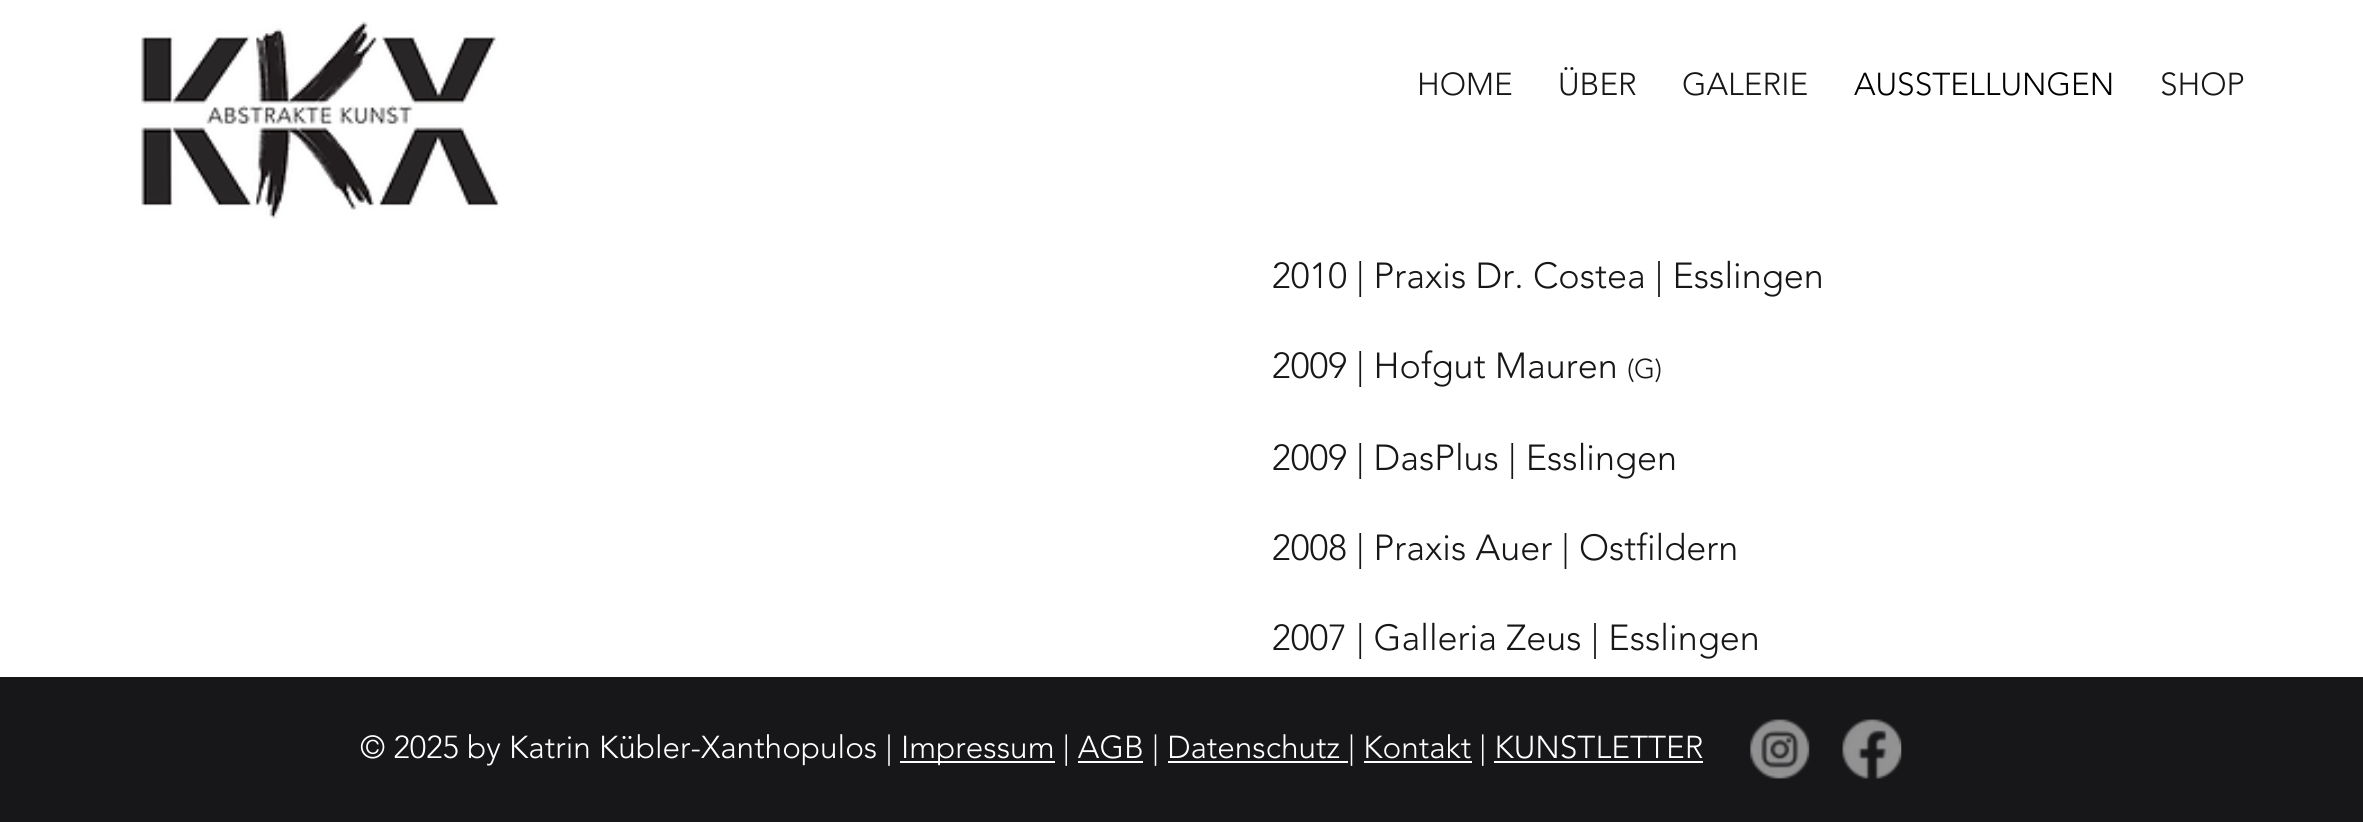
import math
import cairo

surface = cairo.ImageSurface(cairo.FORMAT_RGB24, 2363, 822)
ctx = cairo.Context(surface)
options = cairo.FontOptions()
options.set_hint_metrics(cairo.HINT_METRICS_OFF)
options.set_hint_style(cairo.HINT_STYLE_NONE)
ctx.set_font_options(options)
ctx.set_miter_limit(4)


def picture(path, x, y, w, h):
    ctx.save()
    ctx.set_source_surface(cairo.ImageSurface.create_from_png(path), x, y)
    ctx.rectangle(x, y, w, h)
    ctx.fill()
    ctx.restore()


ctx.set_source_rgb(1, 1, 1)
ctx.paint()
picture("img1.png", 141, 21, 359, 198)
ctx.select_font_face("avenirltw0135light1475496 Light")
ctx.set_font_size(31.5)
ctx.set_source_rgb(0.09, 0.086, 0.098)
ctx.move_to(1417, 95)
ctx.show_text("HOME")
ctx.move_to(1558, 95)
ctx.show_text("ÜBER")
ctx.move_to(1682, 95)
ctx.show_text("GALERIE")
ctx.set_source_rgb(0, 0, 0)
ctx.move_to(1854, 95)
ctx.show_text("AUSSTELLUNGEN")
ctx.set_source_rgb(0.09, 0.086, 0.098)
ctx.move_to(2160, 95)
ctx.show_text("SHOP")
ctx.set_font_size(36)
ctx.move_to(1272, 288)
ctx.show_text("2010 | Praxis Dr. Costea | Esslingen")
ctx.move_to(1272, 378)
ctx.show_text("2009 | Hofgut Mauren")
ctx.set_font_size(27)
ctx.move_to(1627, 378)
ctx.show_text("(G)")
ctx.set_font_size(36)
ctx.move_to(1272, 470)
ctx.show_text("2009 | DasPlus | Esslingen")
ctx.move_to(1272, 560)
ctx.show_text("2008 | Praxis Auer | Ostfildern")
ctx.move_to(1272, 650)
ctx.show_text("2007 | Galleria Zeus | Esslingen")
ctx.rectangle(0, 677, 2363, 145)
ctx.fill()
ctx.set_font_size(31.5)
ctx.set_source_rgb(1, 1, 1)
ctx.move_to(360, 758)
ctx.show_text("© 2025 by Katrin Kübler-Xanthopulos |")
ctx.rectangle(900, 761, 155, 2)
ctx.fill()
ctx.move_to(901, 758)
ctx.show_text("Impressum | AGB | Datenschutz | Kontakt | KUNSTLETTER")
ctx.rectangle(1078, 761, 65, 2)
ctx.fill()
ctx.rectangle(1168, 761, 180, 2)
ctx.fill()
ctx.rectangle(1364, 761, 108, 2)
ctx.fill()
ctx.rectangle(1494, 761, 209, 2)
ctx.fill()
picture("img2.png", 1750, 719, 60, 60)
picture("img3.png", 1842, 719, 60, 60)
surface.write_to_png("page.png")
